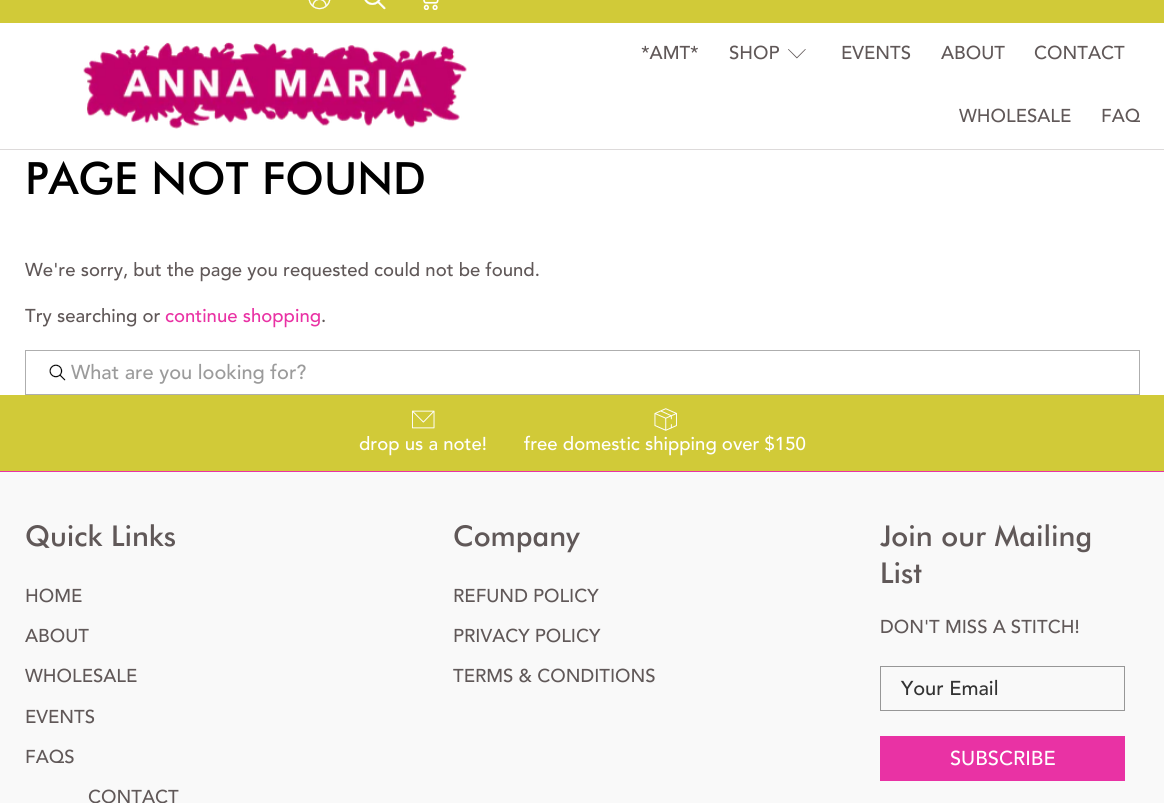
import math
import cairo

surface = cairo.ImageSurface(cairo.FORMAT_RGB24, 1164, 803)
ctx = cairo.Context(surface)
options = cairo.FontOptions()
options.set_hint_metrics(cairo.HINT_METRICS_OFF)
options.set_hint_style(cairo.HINT_STYLE_NONE)
ctx.set_font_options(options)
ctx.set_miter_limit(4)


def picture(path, x, y, w, h):
    ctx.save()
    ctx.set_source_surface(cairo.ImageSurface.create_from_png(path), x, y)
    ctx.rectangle(x, y, w, h)
    ctx.fill()
    ctx.restore()


ctx.set_source_rgb(1, 1, 1)
ctx.paint()
ctx.set_source_rgb(0.82, 0.792, 0.22)
ctx.rectangle(0, 0, 1164, 23)
ctx.fill()
picture("img1.png", 308, 0, 23, 10)
picture("img2.png", 364, 0, 22, 10)
picture("img3.png", 423, 0, 16, 10)
ctx.set_source_rgb(0.867, 0.855, 0.855)
ctx.rectangle(0, 149, 1164, 1)
ctx.fill()
picture("img4.png", 83, 42, 384, 87)
ctx.select_font_face("Avenir Medium")
ctx.set_font_size(18.55)
ctx.set_source_rgb(0.376, 0.345, 0.345)
ctx.move_to(641, 59)
ctx.show_text("*AMT*")
ctx.move_to(729, 59)
ctx.show_text("SHOP")
picture("img5.png", 788, 49, 18, 10)
ctx.move_to(841, 59)
ctx.show_text("EVENTS")
ctx.move_to(941, 59)
ctx.show_text("ABOUT")
ctx.move_to(1034, 59)
ctx.show_text("CONTACT")
ctx.move_to(959, 122)
ctx.show_text("WHOLESALE")
ctx.move_to(1101, 122)
ctx.show_text("FAQ")
ctx.select_font_face("Futura Medium")
ctx.set_font_size(44.6)
ctx.set_source_rgb(0, 0, 0)
ctx.move_to(25, 194)
ctx.show_text("PAGE NOT FOUND")
ctx.select_font_face("Avenir Medium")
ctx.set_font_size(18.55)
ctx.set_source_rgb(0.376, 0.345, 0.345)
ctx.move_to(25, 276)
ctx.show_text("We're sorry, but the page you requested could not be found.")
ctx.move_to(25, 322)
ctx.show_text("Try searching or")
ctx.set_source_rgb(0.914, 0.196, 0.643)
ctx.move_to(165, 322)
ctx.show_text("continue shopping")
ctx.set_source_rgb(0.376, 0.345, 0.345)
ctx.move_to(321, 322)
ctx.show_text(".")
ctx.rectangle(25.5, 350.5, 1114, 44)
ctx.set_source_rgb(0.682, 0.682, 0.682)
ctx.set_line_width(1)
ctx.stroke()
picture("img6.png", 49, 364, 17, 17)
ctx.set_font_size(20)
ctx.set_source_rgb(0.608, 0.608, 0.608)
ctx.move_to(71, 379)
ctx.show_text("What are you looking for?")
ctx.set_source_rgb(0.82, 0.792, 0.22)
ctx.rectangle(0, 395, 1164, 76)
ctx.fill()
picture("img7.png", 412, 410, 23, 19)
ctx.set_font_size(18.55)
ctx.set_source_rgb(1, 1, 1)
ctx.move_to(359, 450)
ctx.show_text("drop us a note!")
picture("img8.png", 654, 408, 23, 23)
ctx.move_to(524, 450)
ctx.show_text("free domestic shipping over $150")
ctx.set_source_rgb(0.973, 0.973, 0.973)
ctx.rectangle(0, 472, 1164, 331)
ctx.fill()
ctx.set_source_rgb(0.914, 0.196, 0.643)
ctx.rectangle(0, 471, 1164, 1)
ctx.fill()
ctx.select_font_face("Futura Medium")
ctx.set_font_size(28.75)
ctx.set_source_rgb(0.376, 0.345, 0.345)
ctx.move_to(25, 546)
ctx.show_text("Quick Links")
ctx.select_font_face("Avenir Medium")
ctx.set_font_size(18.55)
ctx.move_to(25, 602)
ctx.show_text("HOME")
ctx.move_to(25, 642)
ctx.show_text("ABOUT")
ctx.move_to(25, 682)
ctx.show_text("WHOLESALE")
ctx.move_to(25, 723)
ctx.show_text("EVENTS")
ctx.move_to(25, 763)
ctx.show_text("FAQS")
ctx.move_to(88, 803)
ctx.show_text("CONTACT")
ctx.select_font_face("Futura Medium")
ctx.set_font_size(28.75)
ctx.move_to(453, 546)
ctx.show_text("Company")
ctx.select_font_face("Avenir Medium")
ctx.set_font_size(18.55)
ctx.move_to(453, 602)
ctx.show_text("REFUND POLICY")
ctx.move_to(453, 642)
ctx.show_text("PRIVACY POLICY")
ctx.move_to(453, 682)
ctx.show_text("TERMS & CONDITIONS")
ctx.select_font_face("Futura Medium")
ctx.set_font_size(28.75)
ctx.move_to(880, 546)
ctx.show_text("Join our Mailing")
ctx.move_to(880, 583)
ctx.show_text("List")
ctx.select_font_face("Avenir Medium")
ctx.set_font_size(18.55)
ctx.move_to(880, 633)
ctx.show_text("DON'T MISS A STITCH!")
ctx.rectangle(880.5, 666.5, 244, 44)
ctx.set_source_rgb(0.592, 0.592, 0.592)
ctx.stroke()
ctx.set_font_size(20)
ctx.set_source_rgb(0.2, 0.2, 0.2)
ctx.move_to(901, 695)
ctx.show_text("Your Email")
ctx.set_source_rgb(0.914, 0.196, 0.643)
ctx.rectangle(880, 736, 245, 45)
ctx.fill()
ctx.set_source_rgb(1, 1, 1)
ctx.move_to(950, 765)
ctx.show_text("SUBSCRIBE")
surface.write_to_png("page.png")
